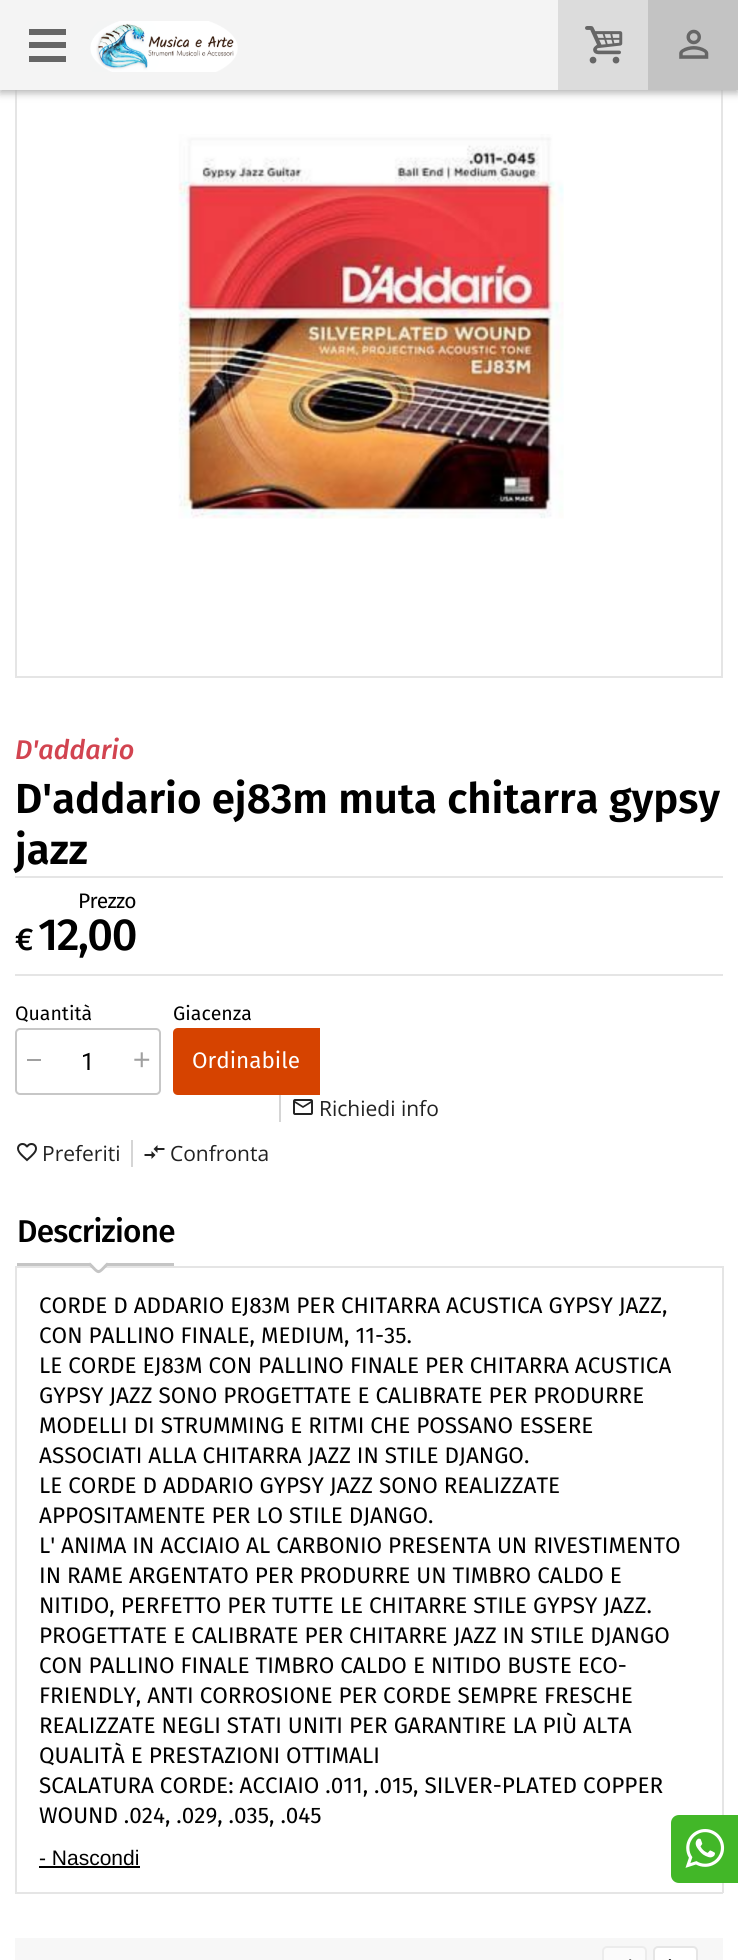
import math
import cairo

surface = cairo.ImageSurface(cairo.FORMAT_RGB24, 738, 1960)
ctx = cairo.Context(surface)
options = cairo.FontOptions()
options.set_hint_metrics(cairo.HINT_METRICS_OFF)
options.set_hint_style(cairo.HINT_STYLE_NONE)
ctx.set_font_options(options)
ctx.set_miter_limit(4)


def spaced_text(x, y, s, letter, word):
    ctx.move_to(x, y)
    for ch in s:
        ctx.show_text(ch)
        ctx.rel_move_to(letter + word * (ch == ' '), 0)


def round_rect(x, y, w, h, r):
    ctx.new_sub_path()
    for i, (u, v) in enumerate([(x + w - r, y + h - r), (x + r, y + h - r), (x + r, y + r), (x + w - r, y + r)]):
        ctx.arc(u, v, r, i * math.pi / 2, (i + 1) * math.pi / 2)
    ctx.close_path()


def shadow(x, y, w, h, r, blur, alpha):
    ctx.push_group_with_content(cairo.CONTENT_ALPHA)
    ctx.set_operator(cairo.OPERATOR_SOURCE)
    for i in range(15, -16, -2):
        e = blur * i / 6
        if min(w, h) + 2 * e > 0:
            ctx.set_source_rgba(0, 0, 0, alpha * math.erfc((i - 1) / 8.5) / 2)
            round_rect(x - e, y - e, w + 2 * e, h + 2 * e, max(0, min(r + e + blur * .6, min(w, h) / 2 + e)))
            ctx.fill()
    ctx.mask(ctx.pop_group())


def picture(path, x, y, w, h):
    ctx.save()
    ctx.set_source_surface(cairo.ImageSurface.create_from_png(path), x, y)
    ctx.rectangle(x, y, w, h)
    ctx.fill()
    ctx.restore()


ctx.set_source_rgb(1, 1, 1)
ctx.paint()
ctx.rectangle(16, -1, 706, 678)
ctx.set_source_rgb(0.898, 0.898, 0.898)
ctx.stroke()
ctx.set_source_rgb(0.706, 0.706, 0.706)
shadow(0, 3, 738, 90, 0, 4, 1)
ctx.set_source_rgb(0.957, 0.957, 0.957)
ctx.rectangle(0, 0, 558, 90)
ctx.fill()
picture("img1.png", 90, 21, 148, 51)
ctx.set_source_rgb(0.863, 0.863, 0.863)
ctx.rectangle(558, 0, 90, 90)
ctx.fill()
picture("img2.png", 585, 26, 38, 38)
ctx.set_source_rgb(0.765, 0.765, 0.765)
ctx.rectangle(648, 0, 90, 90)
ctx.fill()
picture("img3.png", 679, 29, 30, 30)
ctx.set_source_rgb(0.4, 0.4, 0.4)
ctx.rectangle(29, 29, 37, 6)
ctx.fill()
ctx.rectangle(29, 42, 37, 6)
ctx.fill()
ctx.rectangle(29, 56, 37, 6)
ctx.fill()
picture("img4.png", 178, 134, 386, 385)
ctx.select_font_face("Fira Sans Medium", cairo.FONT_SLANT_ITALIC)
ctx.set_font_size(27)
ctx.set_source_rgb(0.824, 0.267, 0.314)
ctx.move_to(15, 759)
ctx.show_text("D'addario")
ctx.select_font_face("Fira Sans SemiBold")
ctx.set_font_size(42)
ctx.set_source_rgb(0, 0, 0)
ctx.move_to(15, 813)
ctx.show_text("D'addario ej83m muta chitarra gypsy")
ctx.move_to(15, 864)
ctx.show_text("jazz")
ctx.set_source_rgb(0.898, 0.898, 0.898)
ctx.rectangle(15, 876, 708, 2)
ctx.fill()
ctx.rectangle(15, 974, 708, 2)
ctx.fill()
ctx.select_font_face("Fira Sans")
ctx.set_font_size(21)
ctx.set_source_rgb(0, 0, 0)
spaced_text(78, 908, "Prezzo", -0.75, 0)
ctx.select_font_face("Fira Sans Medium")
ctx.set_font_size(31.5)
spaced_text(15, 950, "€", -1.5, 0)
ctx.set_font_size(45)
spaced_text(38, 950, "12,00", -1.5, 0)
ctx.select_font_face("Fira Sans")
ctx.set_font_size(19.5)
ctx.move_to(15, 1020)
ctx.show_text("Quantità")
round_rect(16, 1029, 144, 65, 4)
ctx.set_source_rgb(0.78, 0.78, 0.78)
ctx.stroke()
ctx.set_source_rgb(0.627, 0.627, 0.627)
ctx.rectangle(27, 1059, 14, 2)
ctx.fill()
ctx.select_font_face("Roboto")
ctx.set_font_size(24)
ctx.set_source_rgb(0, 0, 0)
ctx.move_to(81, 1070)
ctx.show_text("1")
picture("img5.png", 134, 1052, 16, 16)
ctx.select_font_face("Fira Sans")
ctx.set_font_size(19.5)
ctx.move_to(173, 1020)
ctx.show_text("Giacenza")
ctx.set_source_rgb(0.839, 0.263, 0)
ctx.new_path()
ctx.move_to(178, 1028)
ctx.line_to(320, 1028)
ctx.line_to(320, 1095)
ctx.line_to(178, 1095)
ctx.curve_to(175, 1095, 173, 1093, 173, 1090)
ctx.line_to(173, 1033)
ctx.curve_to(173, 1030, 175, 1028, 178, 1028)
ctx.close_path()
ctx.fill()
ctx.set_font_size(22.5)
ctx.set_source_rgb(1, 1, 1)
ctx.move_to(192, 1068)
ctx.show_text("Ordinabile")
ctx.set_source_rgb(0.835, 0.835, 0.835)
ctx.rectangle(279, 1095, 2, 27)
ctx.fill()
picture("img6.png", 293, 1099, 20, 16)
ctx.select_font_face("Open Sans")
ctx.set_font_size(21)
ctx.set_source_rgb(0.133, 0.133, 0.133)
ctx.move_to(319, 1116)
ctx.show_text("Richiedi info")
picture("img7.png", 17, 1143, 20, 19)
ctx.move_to(42, 1161)
ctx.show_text("Preferiti")
ctx.set_source_rgb(0.835, 0.835, 0.835)
ctx.rectangle(131, 1140, 2, 27)
ctx.fill()
picture("img8.png", 144, 1145, 21, 14)
ctx.set_source_rgb(0.133, 0.133, 0.133)
ctx.move_to(170, 1161)
ctx.show_text("Confronta")
ctx.set_source_rgb(0.898, 0.898, 0.898)
ctx.rectangle(722, 1266, 2, 627)
ctx.fill()
ctx.rectangle(15, 1892, 708, 2)
ctx.fill()
ctx.rectangle(15, 1266, 2, 627)
ctx.fill()
ctx.set_source_rgb(0.773, 0.773, 0.773)
ctx.rectangle(17, 1263, 157, 3)
ctx.fill()
ctx.select_font_face("Fira Sans Medium")
ctx.set_font_size(31.5)
ctx.set_source_rgb(0, 0, 0)
spaced_text(17, 1242, "Descrizione", -0.75, 0)
ctx.set_source_rgb(0.898, 0.898, 0.898)
ctx.rectangle(17, 1266, 705, 2)
ctx.fill()
ctx.set_source_rgb(1, 1, 1)
ctx.new_path()
ctx.move_to(98.5, 1254)
ctx.line_to(107, 1262.5)
ctx.curve_to(96.5, 1272.5, 100.5, 1272.5, 90, 1262.5)
ctx.close_path()
ctx.fill()
ctx.set_source_rgb(0.773, 0.773, 0.773)
ctx.set_fill_rule(cairo.FILL_RULE_EVEN_ODD)
ctx.new_path()
ctx.move_to(98.5, 1254)
ctx.line_to(109, 1264.5)
ctx.curve_to(97.5, 1276, 99.5, 1276, 88, 1264.5)
ctx.close_path()
ctx.move_to(98.5, 1254)
ctx.line_to(107, 1262.5)
ctx.curve_to(96.5, 1272.5, 100.5, 1272.5, 90, 1262.5)
ctx.close_path()
ctx.fill()
ctx.select_font_face("Fira Sans")
ctx.set_font_size(22.5)
ctx.set_source_rgb(0, 0, 0)
ctx.move_to(39, 1313)
ctx.show_text("CORDE D ADDARIO EJ83M PER CHITARRA ACUSTICA GYPSY JAZZ,")
ctx.move_to(39, 1343)
ctx.show_text("CON PALLINO FINALE, MEDIUM, 11-35.")
ctx.move_to(39, 1373)
ctx.show_text("LE CORDE EJ83M CON PALLINO FINALE PER CHITARRA ACUSTICA")
ctx.move_to(39, 1403)
ctx.show_text("GYPSY JAZZ SONO PROGETTATE E CALIBRATE PER PRODURRE")
ctx.move_to(39, 1433)
ctx.show_text("MODELLI DI STRUMMING E RITMI CHE POSSANO ESSERE")
ctx.move_to(39, 1463)
ctx.show_text("ASSOCIATI ALLA CHITARRA JAZZ IN STILE DJANGO.")
ctx.move_to(39, 1493)
ctx.show_text("LE CORDE D ADDARIO GYPSY JAZZ SONO REALIZZATE")
ctx.move_to(39, 1523)
ctx.show_text("APPOSITAMENTE PER LO STILE DJANGO.")
ctx.move_to(39, 1553)
ctx.show_text("L' ANIMA IN ACCIAIO AL CARBONIO PRESENTA UN RIVESTIMENTO")
ctx.move_to(39, 1583)
ctx.show_text("IN RAME ARGENTATO PER PRODURRE UN TIMBRO CALDO E")
ctx.move_to(39, 1613)
ctx.show_text("NITIDO, PERFETTO PER TUTTE LE CHITARRE STILE GYPSY JAZZ.")
ctx.move_to(39, 1643)
ctx.show_text("PROGETTATE E CALIBRATE PER CHITARRE JAZZ IN STILE DJANGO")
ctx.move_to(39, 1673)
ctx.show_text("CON PALLINO FINALE TIMBRO CALDO E NITIDO BUSTE ECO-")
ctx.move_to(39, 1703)
ctx.show_text("FRIENDLY, ANTI CORROSIONE PER CORDE SEMPRE FRESCHE")
ctx.move_to(39, 1733)
ctx.show_text("REALIZZATE NEGLI STATI UNITI PER GARANTIRE LA PIÙ ALTA")
ctx.move_to(39, 1763)
ctx.show_text("QUALITÀ E PRESTAZIONI OTTIMALI")
ctx.move_to(39, 1793)
ctx.show_text("SCALATURA CORDE: ACCIAIO .011, .015, SILVER-PLATED COPPER")
ctx.move_to(39, 1823)
ctx.show_text("WOUND .024, .029, .035, .045")
ctx.select_font_face("Liberation Sans")
ctx.set_font_size(21)
ctx.move_to(39, 1865)
ctx.show_text("- Nascondi")
ctx.rectangle(39, 1866, 101, 2)
ctx.fill()
ctx.set_source_rgb(0.965, 0.965, 0.965)
ctx.rectangle(15, 1938, 708, 22)
ctx.fill()
ctx.set_source_rgb(0.984, 0.984, 0.984)
round_rect(603, 1947, 43, 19, 4)
ctx.fill_preserve()
ctx.set_source_rgb(0.925, 0.925, 0.925)
ctx.stroke()
picture("img9.png", 629, 1959, 3, 1)
ctx.set_source_rgb(1, 1, 1)
round_rect(654, 1947, 43, 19, 4)
ctx.fill_preserve()
ctx.set_source_rgb(0.902, 0.902, 0.902)
ctx.stroke()
picture("img10.png", 668, 1959, 4, 1)
ctx.set_source_rgb(0.259, 0.718, 0.157)
ctx.new_path()
ctx.move_to(679, 1815)
ctx.line_to(738, 1815)
ctx.line_to(738, 1883)
ctx.line_to(679, 1883)
ctx.curve_to(674.5, 1883, 671, 1879.5, 671, 1875)
ctx.line_to(671, 1823)
ctx.curve_to(671, 1818.5, 674.5, 1815, 679, 1815)
ctx.close_path()
ctx.fill()
picture("img11.png", 685, 1829, 40, 39)
surface.write_to_png("page.png")
